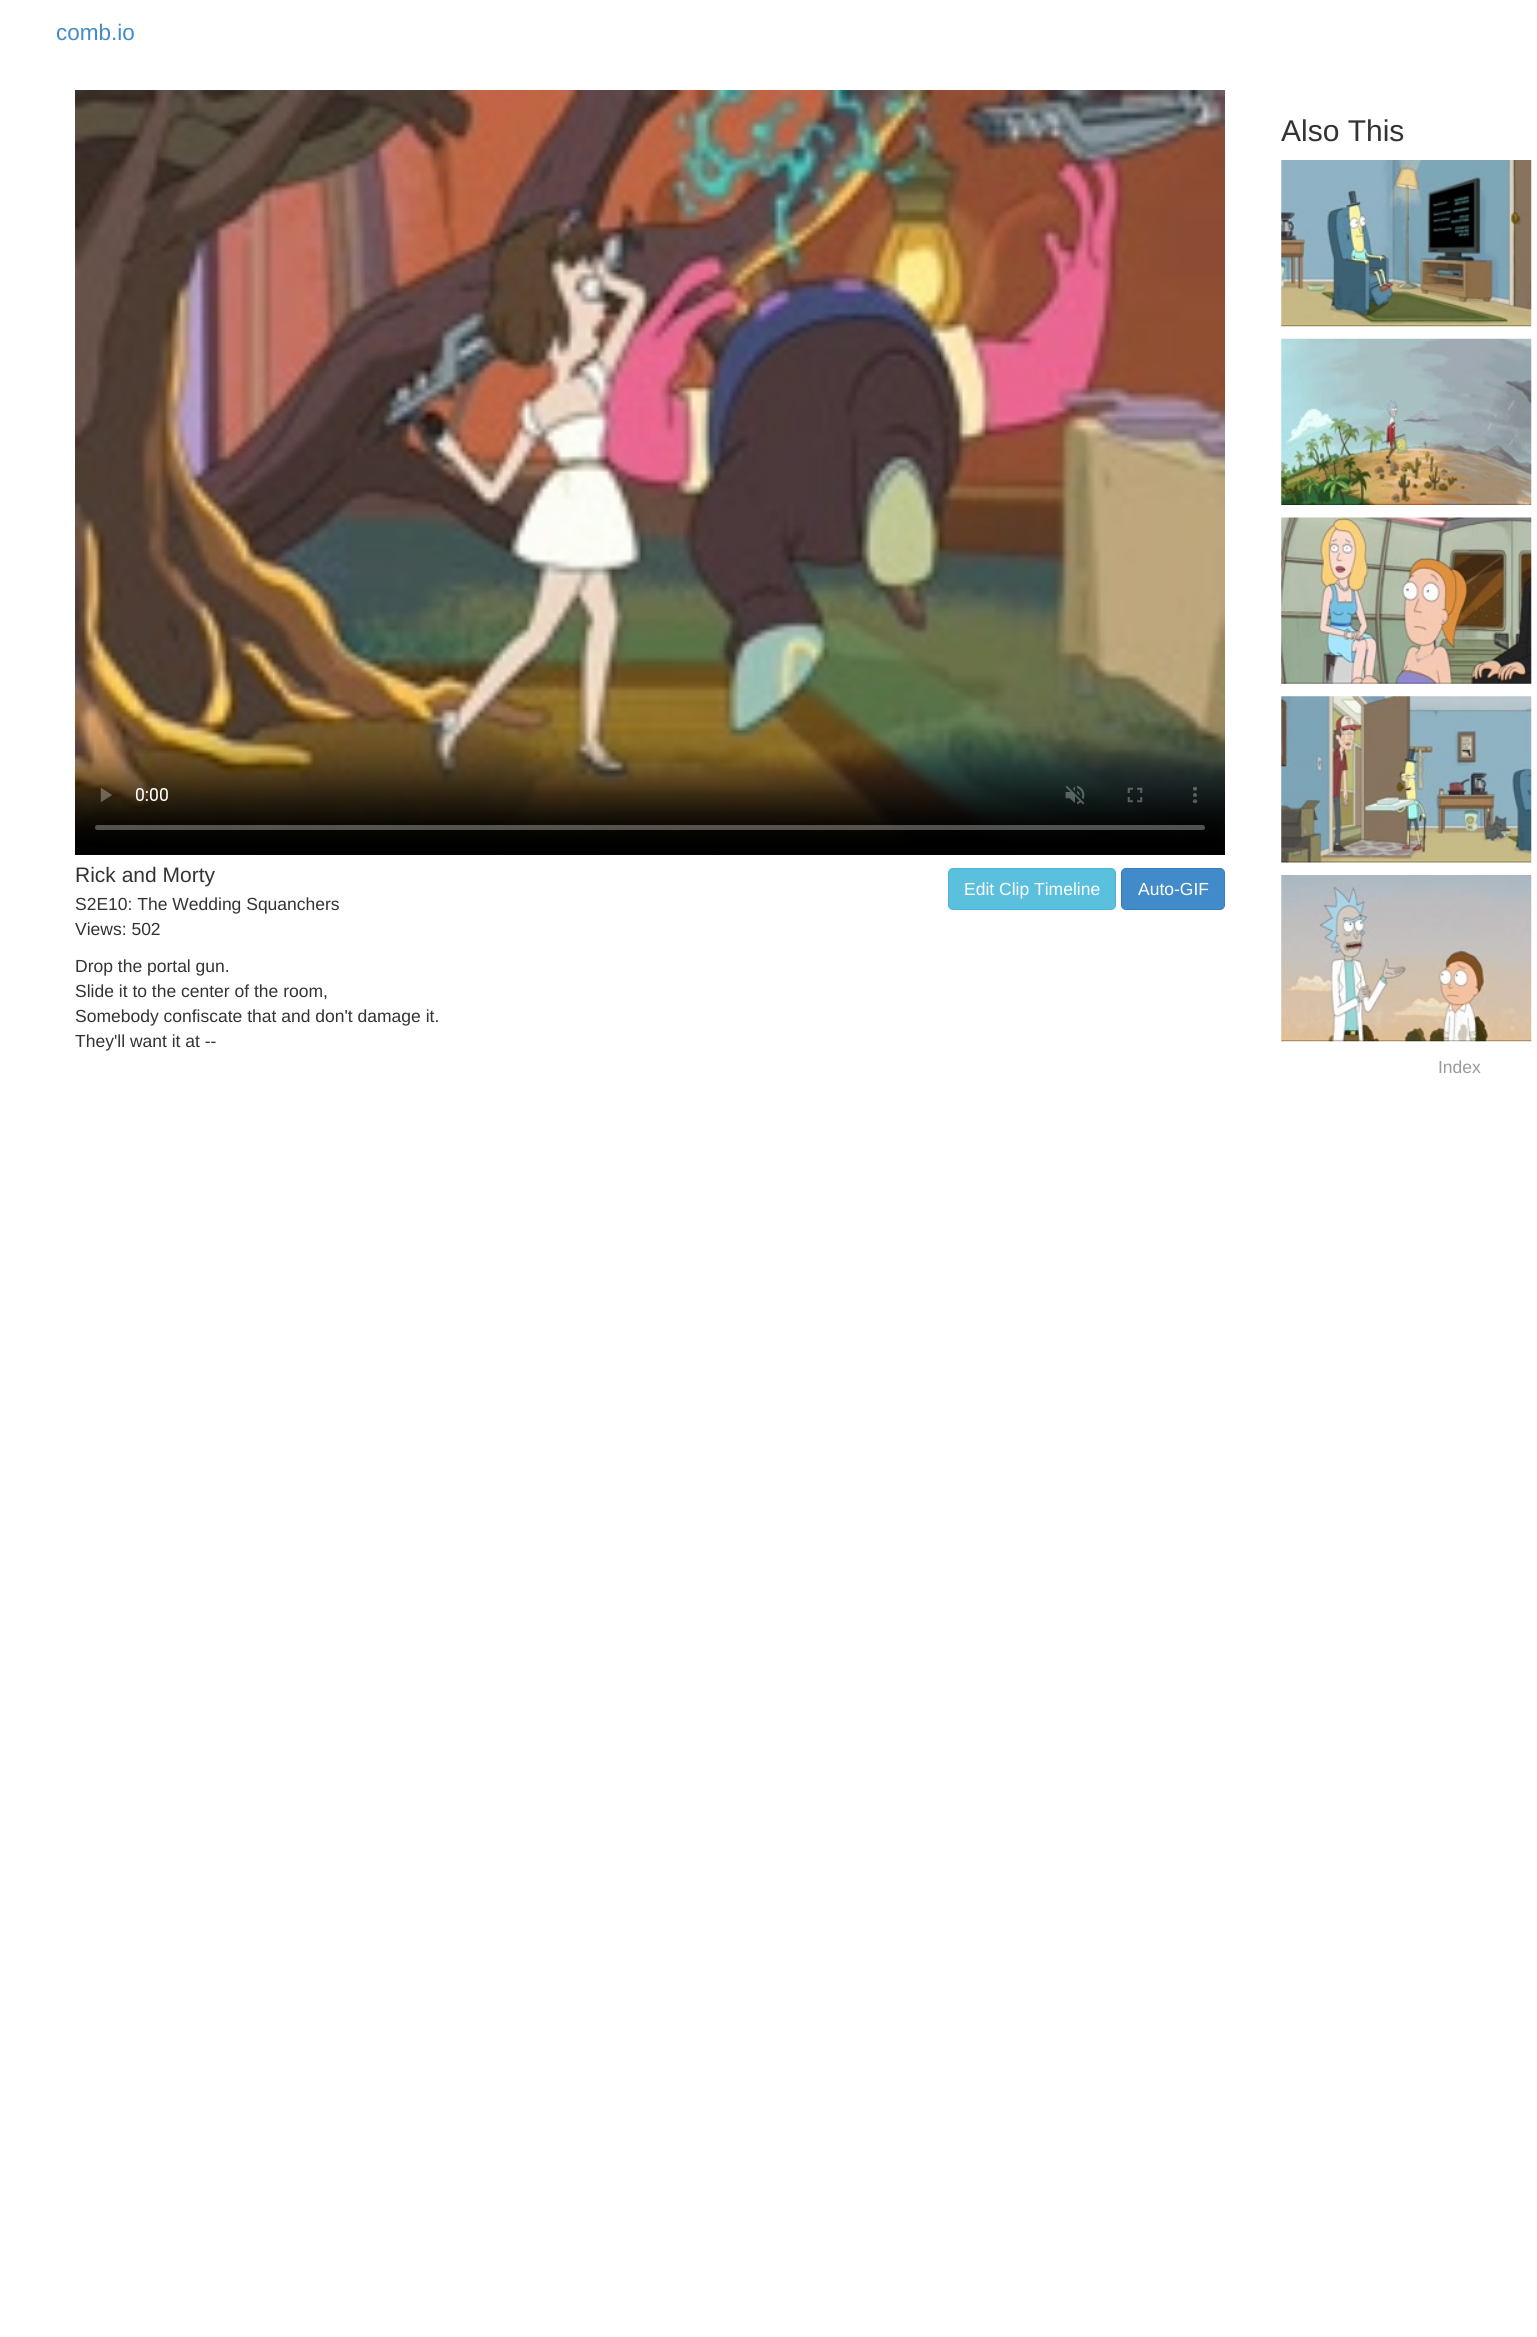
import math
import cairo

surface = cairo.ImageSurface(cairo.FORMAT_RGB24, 1537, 2337)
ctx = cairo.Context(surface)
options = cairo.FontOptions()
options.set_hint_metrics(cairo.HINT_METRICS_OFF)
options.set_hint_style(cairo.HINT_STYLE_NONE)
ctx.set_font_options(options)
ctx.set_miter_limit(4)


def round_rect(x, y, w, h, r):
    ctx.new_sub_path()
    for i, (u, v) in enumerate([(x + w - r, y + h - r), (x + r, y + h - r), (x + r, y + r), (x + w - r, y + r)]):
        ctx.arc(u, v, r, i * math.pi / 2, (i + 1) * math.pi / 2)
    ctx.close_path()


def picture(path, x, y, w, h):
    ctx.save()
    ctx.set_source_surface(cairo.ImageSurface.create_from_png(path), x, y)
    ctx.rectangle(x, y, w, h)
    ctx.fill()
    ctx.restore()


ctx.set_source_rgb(1, 1, 1)
ctx.paint()
ctx.select_font_face("Liberation Sans")
ctx.set_font_size(22.5)
ctx.set_source_rgb(0.259, 0.545, 0.792)
ctx.move_to(56, 40)
ctx.show_text("comb.io")
ctx.set_font_size(30)
ctx.set_source_rgb(0.2, 0.2, 0.2)
ctx.move_to(1281, 141)
ctx.show_text("Also This")
picture("img1.png", 1281, 160, 251, 167)
picture("img2.png", 1281, 338, 251, 167)
picture("img3.png", 1281, 517, 251, 167)
picture("img4.png", 1281, 696, 251, 167)
picture("img5.png", 1281, 875, 251, 167)
picture("img6.png", 75, 90, 1150, 765)
ctx.set_font_size(21)
ctx.move_to(75, 882)
ctx.show_text("Rick and Morty")
ctx.set_font_size(17.5)
ctx.move_to(75, 910)
ctx.show_text("S2E10: The Wedding Squanchers")
ctx.move_to(75, 935)
ctx.show_text("Views: 502")
ctx.move_to(75, 972)
ctx.show_text("Drop the portal gun.")
ctx.move_to(75, 997)
ctx.show_text("Slide it to the center of the room,")
ctx.move_to(75, 1022)
ctx.show_text("Somebody confiscate that and don't damage it.")
ctx.move_to(75, 1047)
ctx.show_text("They'll want it at --")
ctx.set_source_rgb(0.357, 0.753, 0.871)
round_rect(948.5, 868.5, 167, 41, 4.5)
ctx.fill_preserve()
ctx.set_source_rgb(0.275, 0.722, 0.855)
ctx.set_line_width(1)
ctx.stroke()
ctx.set_source_rgb(1, 1, 1)
ctx.move_to(964, 895)
ctx.show_text("Edit Clip Timeline")
ctx.set_source_rgb(0.259, 0.545, 0.792)
round_rect(1121.5, 868.5, 103, 41, 4.5)
ctx.fill_preserve()
ctx.set_source_rgb(0.208, 0.494, 0.741)
ctx.stroke()
ctx.set_source_rgb(1, 1, 1)
ctx.move_to(1138, 895)
ctx.show_text("Auto-GIF")
ctx.set_source_rgb(0.6, 0.6, 0.6)
ctx.move_to(1438, 1073)
ctx.show_text("Index")
surface.write_to_png("page.png")
